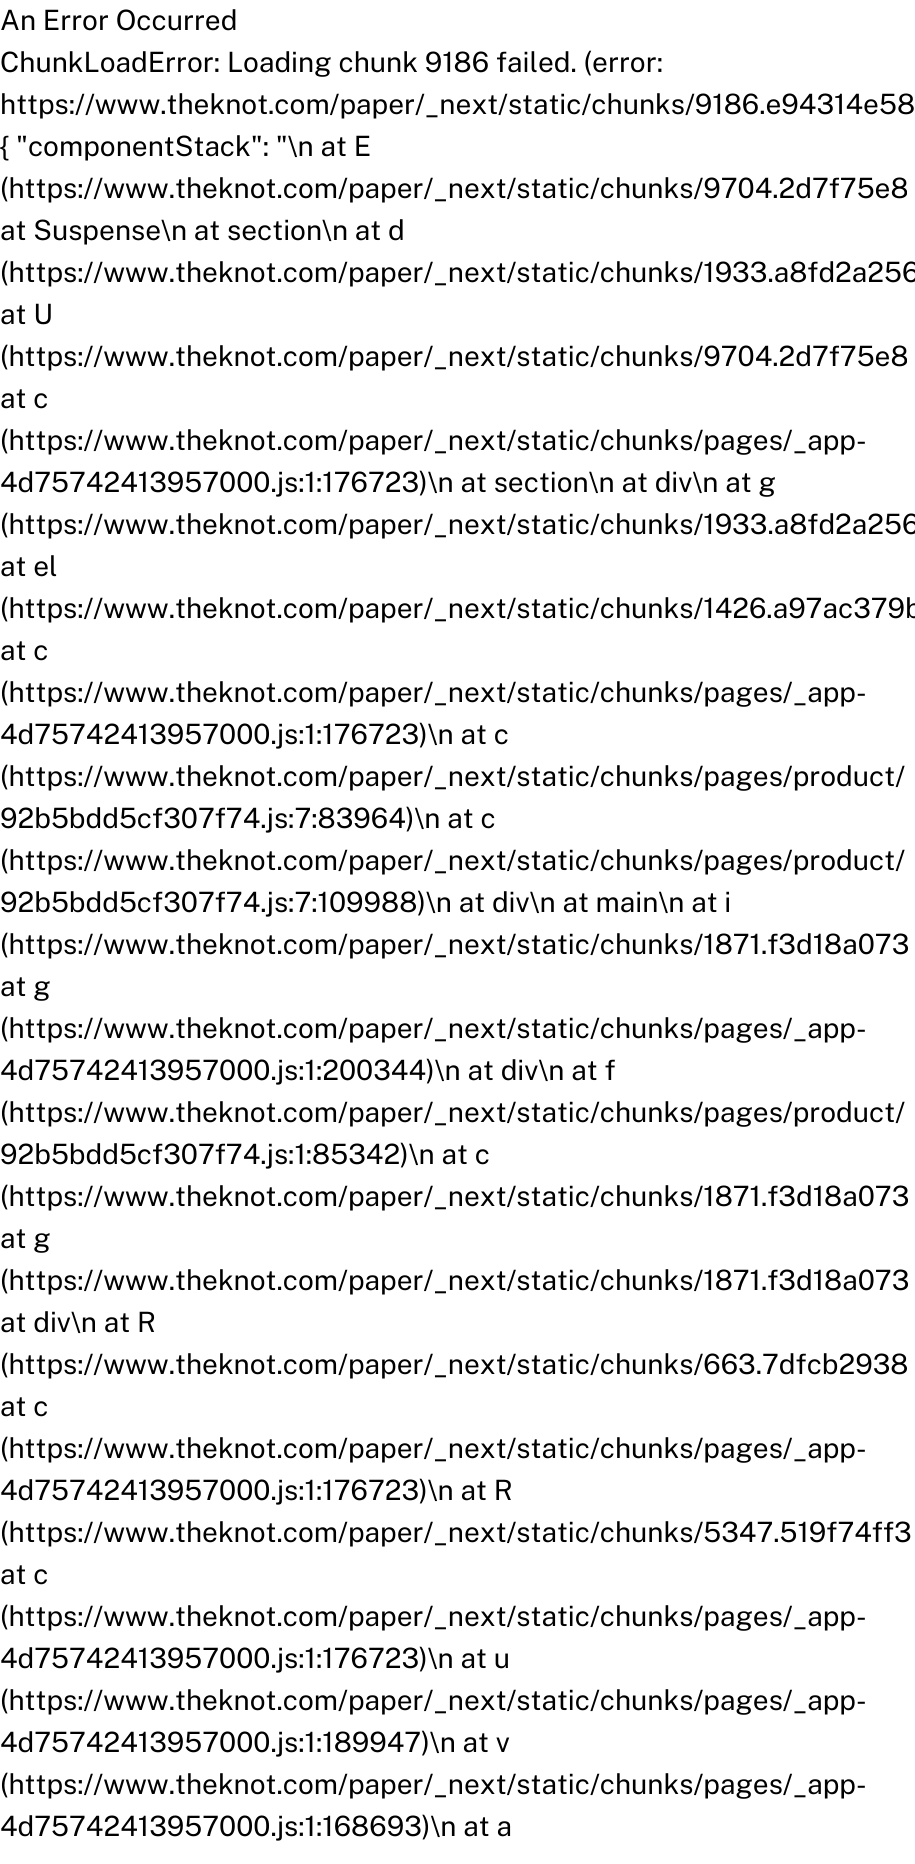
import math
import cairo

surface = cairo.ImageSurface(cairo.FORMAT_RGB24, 915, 1864)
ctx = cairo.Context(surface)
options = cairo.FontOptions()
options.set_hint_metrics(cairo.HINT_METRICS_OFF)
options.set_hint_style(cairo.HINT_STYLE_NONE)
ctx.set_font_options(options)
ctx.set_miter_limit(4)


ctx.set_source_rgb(1, 1, 1)
ctx.paint()
ctx.select_font_face("Public Sans")
ctx.set_font_size(28)
ctx.set_source_rgb(0, 0, 0)
ctx.move_to(0, 30)
ctx.show_text("An Error Occurred")
ctx.move_to(0, 72)
ctx.show_text("ChunkLoadError: Loading chunk 9186 failed. (error:")
ctx.move_to(0, 114)
ctx.show_text("https://www.theknot.com/paper/_next/static/chunks/9186.e94314e58")
ctx.move_to(0, 156)
ctx.show_text("{ \"componentStack\": \"\\n at E")
ctx.move_to(0, 198)
ctx.show_text("(https://www.theknot.com/paper/_next/static/chunks/9704.2d7f75e8")
ctx.move_to(0, 240)
ctx.show_text("at Suspense\\n at section\\n at d")
ctx.move_to(0, 282)
ctx.show_text("(https://www.theknot.com/paper/_next/static/chunks/1933.a8fd2a256")
ctx.move_to(0, 324)
ctx.show_text("at U")
ctx.move_to(0, 366)
ctx.show_text("(https://www.theknot.com/paper/_next/static/chunks/9704.2d7f75e8")
ctx.move_to(0, 408)
ctx.show_text("at c")
ctx.move_to(0, 450)
ctx.show_text("(https://www.theknot.com/paper/_next/static/chunks/pages/_app-")
ctx.move_to(0, 492)
ctx.show_text("4d75742413957000.js:1:176723)\\n at section\\n at div\\n at g")
ctx.move_to(0, 534)
ctx.show_text("(https://www.theknot.com/paper/_next/static/chunks/1933.a8fd2a256")
ctx.move_to(0, 576)
ctx.show_text("at el")
ctx.move_to(0, 618)
ctx.show_text("(https://www.theknot.com/paper/_next/static/chunks/1426.a97ac379b")
ctx.move_to(0, 660)
ctx.show_text("at c")
ctx.move_to(0, 702)
ctx.show_text("(https://www.theknot.com/paper/_next/static/chunks/pages/_app-")
ctx.move_to(0, 744)
ctx.show_text("4d75742413957000.js:1:176723)\\n at c")
ctx.move_to(0, 786)
ctx.show_text("(https://www.theknot.com/paper/_next/static/chunks/pages/product/")
ctx.move_to(0, 828)
ctx.show_text("92b5bdd5cf307f74.js:7:83964)\\n at c")
ctx.move_to(0, 870)
ctx.show_text("(https://www.theknot.com/paper/_next/static/chunks/pages/product/")
ctx.move_to(0, 912)
ctx.show_text("92b5bdd5cf307f74.js:7:109988)\\n at div\\n at main\\n at i")
ctx.move_to(0, 954)
ctx.show_text("(https://www.theknot.com/paper/_next/static/chunks/1871.f3d18a073")
ctx.move_to(0, 996)
ctx.show_text("at g")
ctx.move_to(0, 1038)
ctx.show_text("(https://www.theknot.com/paper/_next/static/chunks/pages/_app-")
ctx.move_to(0, 1080)
ctx.show_text("4d75742413957000.js:1:200344)\\n at div\\n at f")
ctx.move_to(0, 1122)
ctx.show_text("(https://www.theknot.com/paper/_next/static/chunks/pages/product/")
ctx.move_to(0, 1164)
ctx.show_text("92b5bdd5cf307f74.js:1:85342)\\n at c")
ctx.move_to(0, 1206)
ctx.show_text("(https://www.theknot.com/paper/_next/static/chunks/1871.f3d18a073")
ctx.move_to(0, 1248)
ctx.show_text("at g")
ctx.move_to(0, 1290)
ctx.show_text("(https://www.theknot.com/paper/_next/static/chunks/1871.f3d18a073")
ctx.move_to(0, 1332)
ctx.show_text("at div\\n at R")
ctx.move_to(0, 1374)
ctx.show_text("(https://www.theknot.com/paper/_next/static/chunks/663.7dfcb2938")
ctx.move_to(0, 1416)
ctx.show_text("at c")
ctx.move_to(0, 1458)
ctx.show_text("(https://www.theknot.com/paper/_next/static/chunks/pages/_app-")
ctx.move_to(0, 1500)
ctx.show_text("4d75742413957000.js:1:176723)\\n at R")
ctx.move_to(0, 1542)
ctx.show_text("(https://www.theknot.com/paper/_next/static/chunks/5347.519f74ff3")
ctx.move_to(0, 1584)
ctx.show_text("at c")
ctx.move_to(0, 1626)
ctx.show_text("(https://www.theknot.com/paper/_next/static/chunks/pages/_app-")
ctx.move_to(0, 1668)
ctx.show_text("4d75742413957000.js:1:176723)\\n at u")
ctx.move_to(0, 1710)
ctx.show_text("(https://www.theknot.com/paper/_next/static/chunks/pages/_app-")
ctx.move_to(0, 1752)
ctx.show_text("4d75742413957000.js:1:189947)\\n at v")
ctx.move_to(0, 1794)
ctx.show_text("(https://www.theknot.com/paper/_next/static/chunks/pages/_app-")
ctx.move_to(0, 1836)
ctx.show_text("4d75742413957000.js:1:168693)\\n at a")
surface.write_to_png("page.png")
